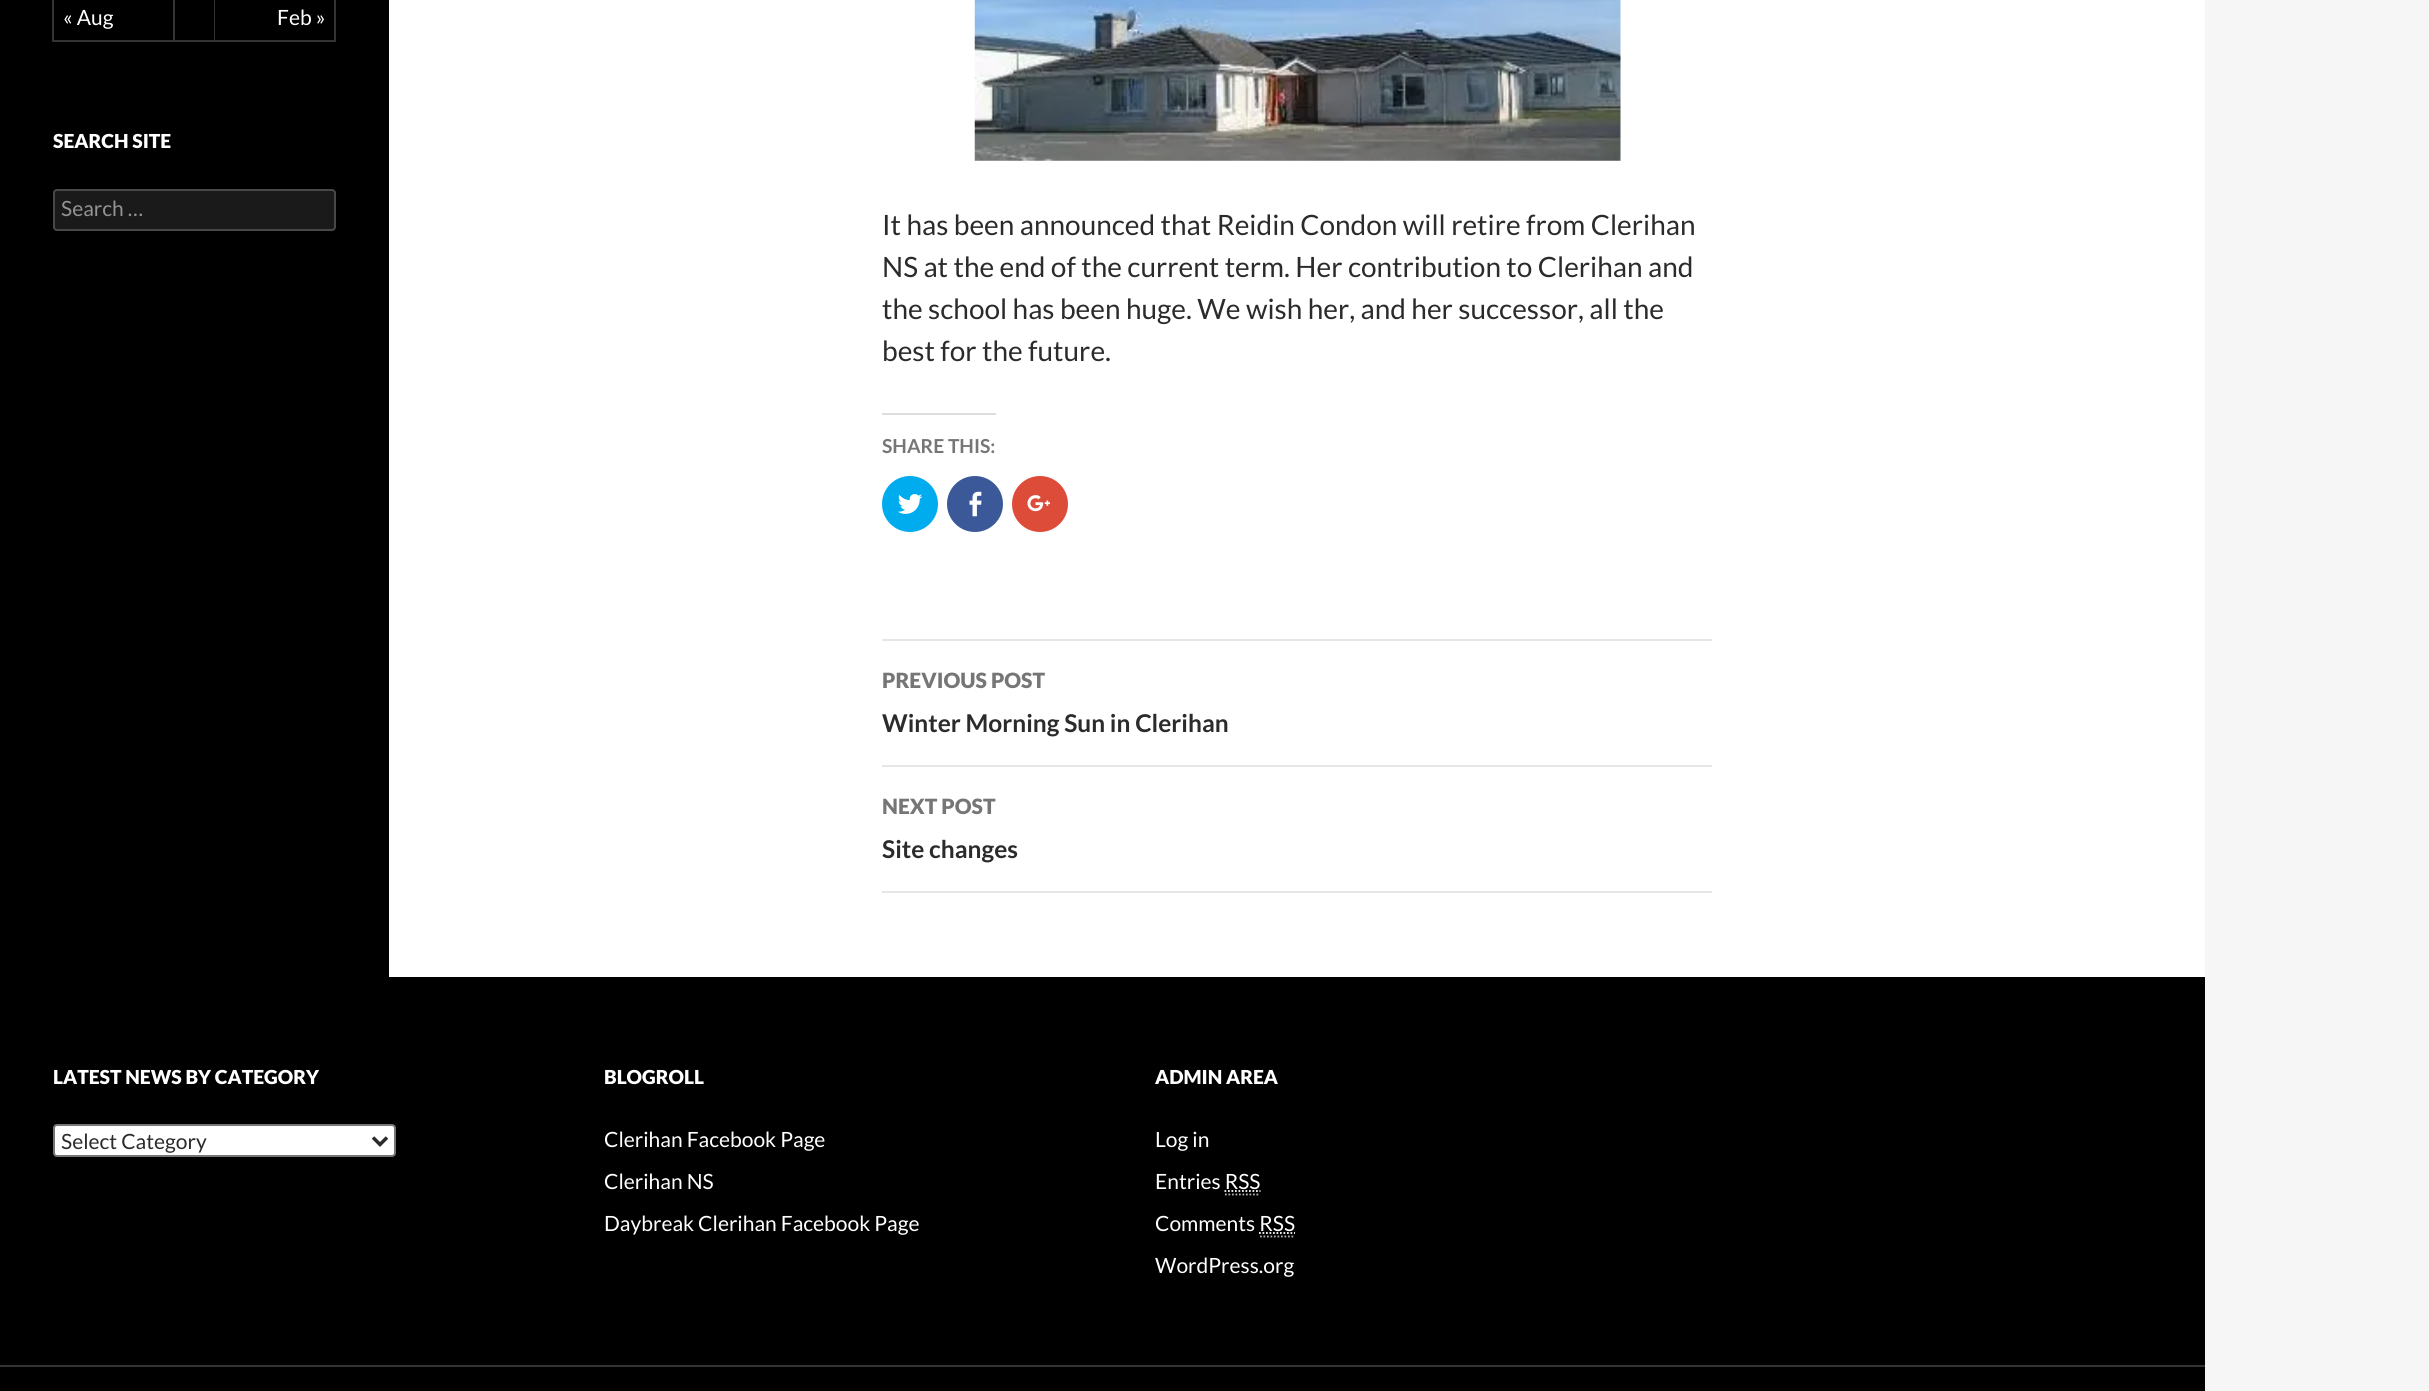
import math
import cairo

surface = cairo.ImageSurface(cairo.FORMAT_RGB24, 2429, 1391)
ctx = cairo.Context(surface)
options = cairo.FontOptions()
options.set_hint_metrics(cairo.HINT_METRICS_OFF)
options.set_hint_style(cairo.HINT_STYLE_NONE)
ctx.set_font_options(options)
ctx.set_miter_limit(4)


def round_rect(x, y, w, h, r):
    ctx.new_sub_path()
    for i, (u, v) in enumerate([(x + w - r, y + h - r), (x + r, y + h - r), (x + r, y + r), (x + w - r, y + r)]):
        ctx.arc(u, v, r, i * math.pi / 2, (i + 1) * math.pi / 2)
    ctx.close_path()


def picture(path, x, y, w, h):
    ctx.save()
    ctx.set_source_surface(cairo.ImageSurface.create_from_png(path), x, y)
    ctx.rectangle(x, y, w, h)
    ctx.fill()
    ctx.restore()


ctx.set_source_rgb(0.961, 0.961, 0.961)
ctx.paint()
ctx.set_source_rgb(1, 1, 1)
ctx.rectangle(389, 0, 1816, 977)
ctx.fill()
ctx.set_source_rgb(0, 0, 0)
ctx.rectangle(0, 0, 389, 977)
ctx.fill()
ctx.set_source_rgb(0.2, 0.2, 0.2)
ctx.new_path()
ctx.move_to(52, 42)
ctx.line_to(52, -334)
ctx.line_to(54, -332)
ctx.line_to(54, 42)
ctx.close_path()
ctx.fill()
ctx.new_path()
ctx.move_to(175, -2)
ctx.line_to(175, 42)
ctx.line_to(173, 40)
ctx.line_to(173, -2)
ctx.close_path()
ctx.fill()
ctx.set_source_rgba(1, 1, 1, 0.2)
ctx.new_path()
ctx.move_to(175, 42)
ctx.line_to(54, 42)
ctx.line_to(54, 40)
ctx.line_to(173, 40)
ctx.close_path()
ctx.fill()
ctx.select_font_face("Lato")
ctx.set_font_size(21)
ctx.set_source_rgb(1, 1, 1)
ctx.move_to(63, 25)
ctx.show_text("« Aug")
ctx.set_source_rgb(0.2, 0.2, 0.2)
ctx.new_path()
ctx.move_to(215, -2)
ctx.line_to(215, 42)
ctx.line_to(214, 40)
ctx.line_to(214, -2)
ctx.close_path()
ctx.fill()
ctx.set_source_rgba(1, 1, 1, 0.2)
ctx.new_path()
ctx.move_to(215, 42)
ctx.line_to(175, 42)
ctx.line_to(175, 40)
ctx.line_to(214, 40)
ctx.close_path()
ctx.fill()
ctx.set_source_rgb(0.2, 0.2, 0.2)
ctx.new_path()
ctx.move_to(336, -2)
ctx.line_to(336, 42)
ctx.line_to(334, 40)
ctx.line_to(334, -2)
ctx.close_path()
ctx.fill()
ctx.set_source_rgba(1, 1, 1, 0.2)
ctx.new_path()
ctx.move_to(336, 42)
ctx.line_to(215, 42)
ctx.line_to(215, 40)
ctx.line_to(334, 40)
ctx.close_path()
ctx.fill()
ctx.set_source_rgb(1, 1, 1)
ctx.move_to(277, 25)
ctx.show_text("Feb »")
ctx.select_font_face("Lato Black")
ctx.set_font_size(19.25)
ctx.move_to(53, 148)
ctx.show_text("SEARCH SITE")
ctx.set_source_rgb(0.102, 0.102, 0.102)
round_rect(53, 189, 283, 42, 4)
ctx.fill()
round_rect(54, 190, 281, 40, 3)
ctx.set_source_rgba(1, 1, 1, 0.2)
ctx.stroke()
ctx.select_font_face("Lato")
ctx.set_font_size(21)
ctx.set_source_rgb(0.576, 0.576, 0.576)
ctx.move_to(61, 216)
ctx.show_text("Search …")
picture("img1.png", 974, 0, 647, 161)
ctx.set_font_size(28)
ctx.set_source_rgb(0.169, 0.169, 0.169)
ctx.move_to(882, 235)
ctx.show_text("It has been announced that Reidin Condon will retire from Clerihan")
ctx.move_to(882, 277)
ctx.show_text("NS at the end of the current term. Her contribution to Clerihan and")
ctx.move_to(882, 319)
ctx.show_text("the school has been huge. We wish her, and her successor, all the")
ctx.move_to(882, 361)
ctx.show_text("best for the future.")
ctx.set_source_rgb(0.867, 0.867, 0.867)
ctx.rectangle(882, 413, 114, 2)
ctx.fill()
ctx.select_font_face("Lato", cairo.FONT_SLANT_NORMAL, cairo.FONT_WEIGHT_BOLD)
ctx.set_font_size(19.25)
ctx.set_source_rgb(0.463, 0.463, 0.463)
ctx.move_to(882, 453)
ctx.show_text("SHARE THIS:")
ctx.set_source_rgb(0, 0.675, 0.933)
ctx.new_path()
ctx.arc(910, 504, 28, 0, 2 * math.pi)
ctx.fill()
picture("img2.png", 898, 494, 25, 20)
ctx.set_source_rgb(0.231, 0.349, 0.596)
ctx.arc(975, 504, 28, 0, 2 * math.pi)
ctx.fill()
picture("img3.png", 969, 491, 13, 26)
ctx.set_source_rgb(0.867, 0.294, 0.224)
ctx.arc(1040, 504, 28, 0, 2 * math.pi)
ctx.fill()
picture("img4.png", 1027, 495, 23, 17)
ctx.set_source_rgb(0.902, 0.902, 0.902)
ctx.rectangle(882, 639, 830, 2)
ctx.fill()
ctx.rectangle(882, 765, 830, 2)
ctx.fill()
ctx.select_font_face("Lato Black")
ctx.set_font_size(21)
ctx.set_source_rgb(0.463, 0.463, 0.463)
ctx.move_to(882, 688)
ctx.show_text("PREVIOUS POST")
ctx.select_font_face("Lato", cairo.FONT_SLANT_NORMAL, cairo.FONT_WEIGHT_BOLD)
ctx.set_font_size(24.5)
ctx.set_source_rgb(0.169, 0.169, 0.169)
ctx.move_to(882, 732)
ctx.show_text("Winter Morning Sun in Clerihan")
ctx.set_source_rgb(0.902, 0.902, 0.902)
ctx.rectangle(882, 891, 830, 2)
ctx.fill()
ctx.select_font_face("Lato Black")
ctx.set_font_size(21)
ctx.set_source_rgb(0.463, 0.463, 0.463)
ctx.move_to(882, 814)
ctx.show_text("NEXT POST")
ctx.select_font_face("Lato", cairo.FONT_SLANT_NORMAL, cairo.FONT_WEIGHT_BOLD)
ctx.set_font_size(24.5)
ctx.set_source_rgb(0.169, 0.169, 0.169)
ctx.move_to(882, 858)
ctx.show_text("Site changes")
ctx.set_source_rgb(0, 0, 0)
ctx.rectangle(0, 977, 2205, 414)
ctx.fill()
ctx.select_font_face("Lato Black")
ctx.set_font_size(19.25)
ctx.set_source_rgb(1, 1, 1)
ctx.move_to(53, 1084)
ctx.show_text("LATEST NEWS BY CATEGORY")
round_rect(54, 1125, 341, 31, 3)
ctx.fill_preserve()
ctx.set_source_rgb(0.463, 0.463, 0.463)
ctx.stroke()
ctx.new_path()
ctx.move_to(373, 1137.5)
ctx.line_to(380, 1144.5)
ctx.line_to(387, 1137.5)
ctx.set_source_rgb(0.169, 0.169, 0.169)
ctx.set_line_width(3.5)
ctx.stroke()
ctx.select_font_face("Lato")
ctx.set_font_size(21)
ctx.move_to(61, 1149)
ctx.show_text("Select Category")
ctx.select_font_face("Lato Black")
ctx.set_font_size(19.25)
ctx.set_source_rgb(1, 1, 1)
ctx.move_to(604, 1084)
ctx.show_text("BLOGROLL")
ctx.select_font_face("Lato")
ctx.set_font_size(21)
ctx.move_to(604, 1147)
ctx.show_text("Clerihan Facebook Page")
ctx.move_to(604, 1189)
ctx.show_text("Clerihan NS")
ctx.move_to(604, 1231)
ctx.show_text("Daybreak Clerihan Facebook Page")
ctx.select_font_face("Lato Black")
ctx.set_font_size(19.25)
ctx.move_to(1155, 1084)
ctx.show_text("ADMIN AREA")
ctx.select_font_face("Lato")
ctx.set_font_size(21)
ctx.move_to(1155, 1147)
ctx.show_text("Log in")
ctx.move_to(1155, 1189)
ctx.show_text("Entries RSS")
ctx.new_path()
ctx.move_to(1225, 1194.5)
ctx.line_to(1260, 1194.5)
ctx.set_source_rgb(0.702, 0.702, 0.702)
ctx.set_line_width(1.8)
ctx.set_dash([1.75, 1.75])
ctx.stroke()
ctx.new_path()
ctx.move_to(1224.5, 1191)
ctx.line_to(1260.5, 1191)
ctx.set_source_rgb(1, 1, 1)
ctx.stroke()
ctx.move_to(1155, 1231)
ctx.show_text("Comments RSS")
ctx.new_path()
ctx.move_to(1260, 1236.5)
ctx.line_to(1295, 1236.5)
ctx.set_source_rgb(0.702, 0.702, 0.702)
ctx.stroke()
ctx.new_path()
ctx.move_to(1259, 1233)
ctx.line_to(1295, 1233)
ctx.set_source_rgb(1, 1, 1)
ctx.stroke()
ctx.move_to(1155, 1273)
ctx.show_text("WordPress.org")
ctx.set_source_rgb(0.2, 0.2, 0.2)
ctx.rectangle(0, 1365, 2205, 2)
ctx.fill()
surface.write_to_png("page.png")
